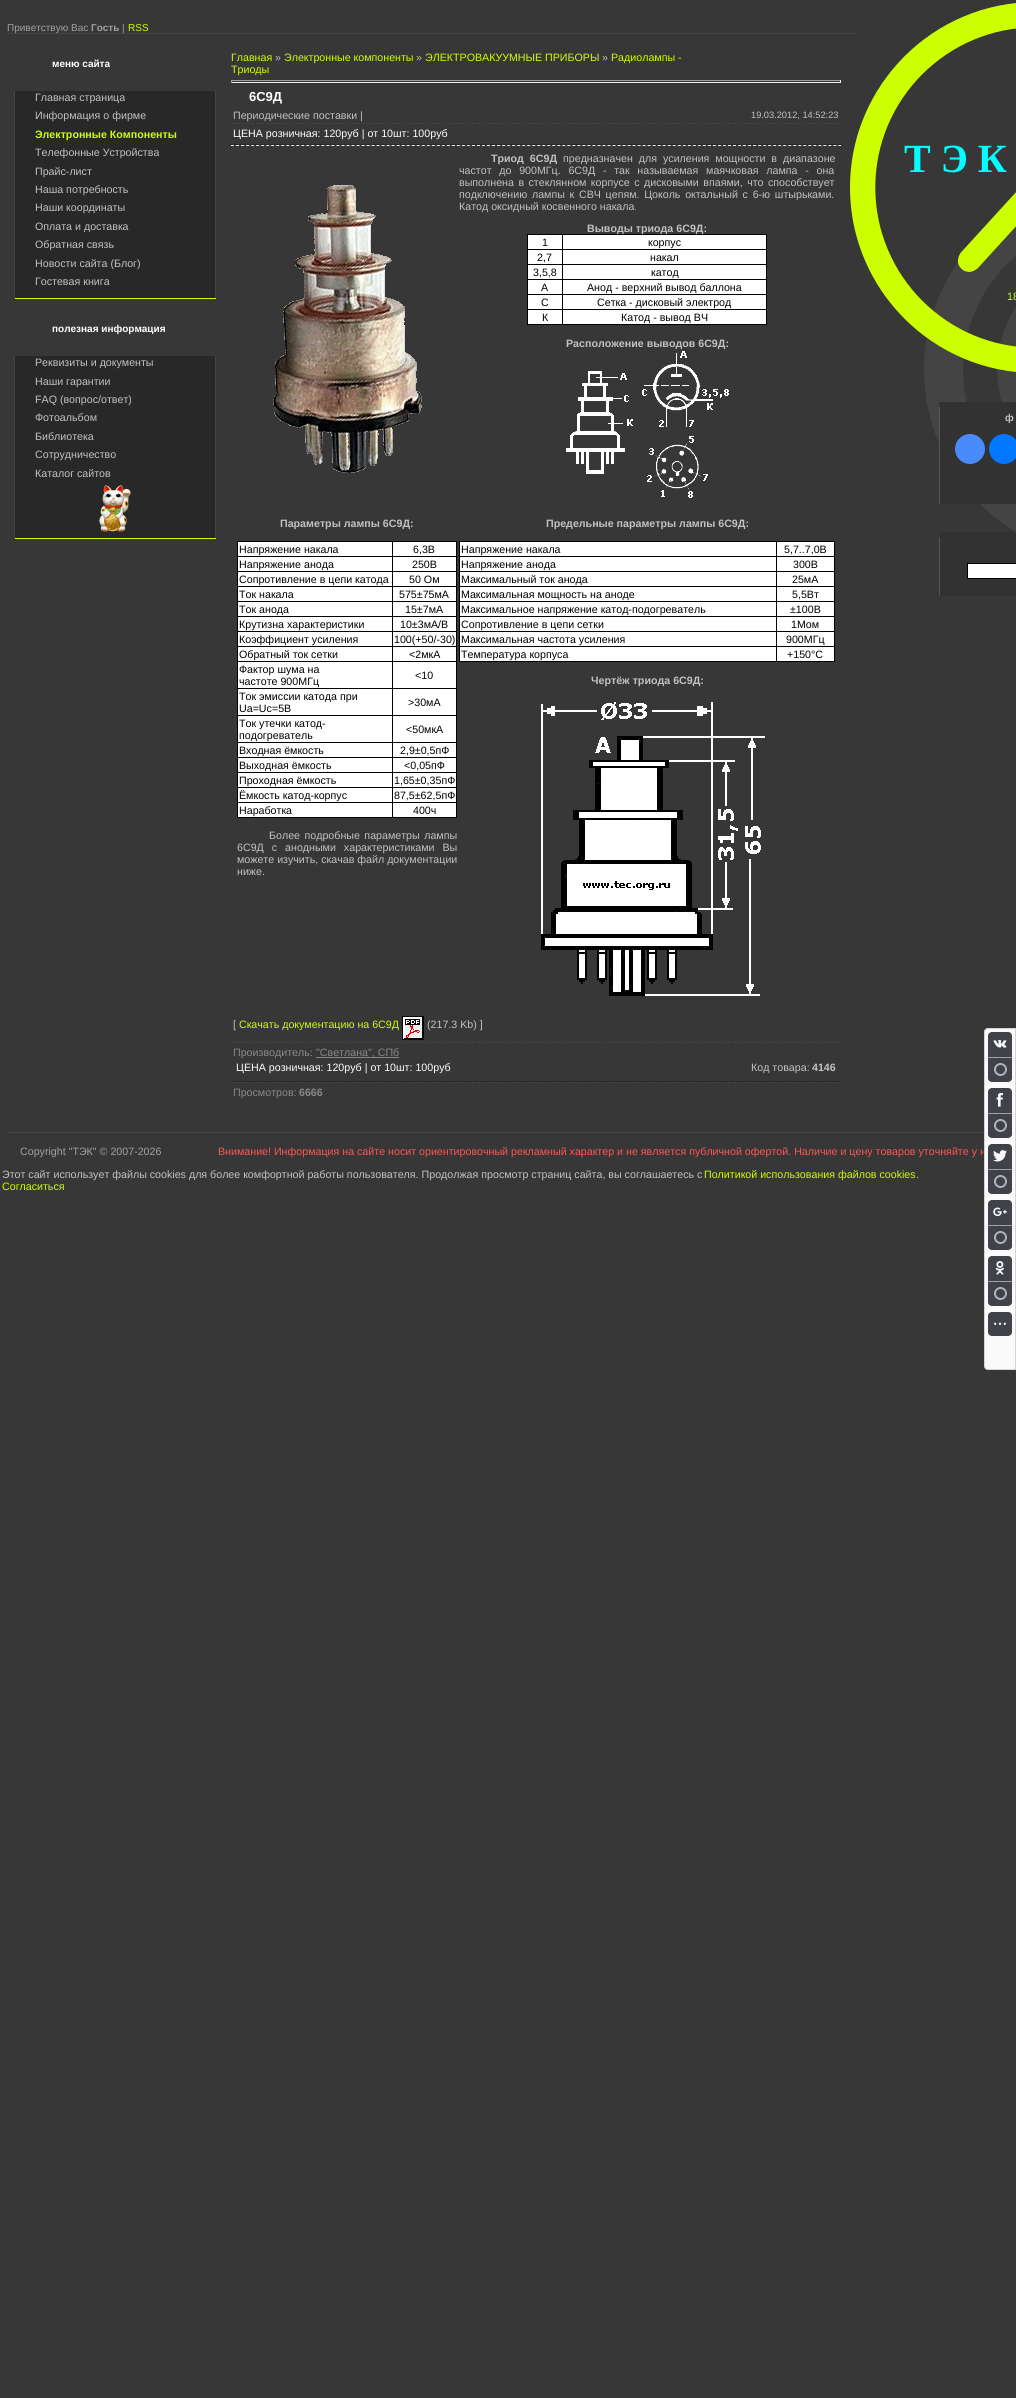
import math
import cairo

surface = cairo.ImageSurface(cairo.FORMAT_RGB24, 1016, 2398)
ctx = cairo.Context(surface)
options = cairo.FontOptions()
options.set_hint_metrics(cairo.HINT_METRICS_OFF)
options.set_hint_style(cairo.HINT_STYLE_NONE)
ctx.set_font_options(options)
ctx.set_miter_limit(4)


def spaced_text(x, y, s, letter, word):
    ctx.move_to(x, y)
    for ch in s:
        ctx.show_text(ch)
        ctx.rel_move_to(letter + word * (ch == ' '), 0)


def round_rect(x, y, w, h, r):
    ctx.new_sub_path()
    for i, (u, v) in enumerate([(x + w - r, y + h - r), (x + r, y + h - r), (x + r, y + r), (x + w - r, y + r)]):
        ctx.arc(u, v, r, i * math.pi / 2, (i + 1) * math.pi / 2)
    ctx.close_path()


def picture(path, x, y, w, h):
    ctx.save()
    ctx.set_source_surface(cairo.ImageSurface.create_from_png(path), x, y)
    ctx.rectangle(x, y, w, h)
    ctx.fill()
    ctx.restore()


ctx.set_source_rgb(0.216, 0.216, 0.216)
ctx.paint()
picture("img1.png", 850, 3, 166, 529)
ctx.set_source_rgb(0.267, 0.267, 0.267)
ctx.rectangle(7, 33, 849, 1)
ctx.fill()
ctx.select_font_face("Liberation Sans")
ctx.set_font_size(10)
ctx.set_source_rgb(0.631, 0.631, 0.631)
ctx.move_to(7, 31)
ctx.show_text("Приветствую Вас")
ctx.select_font_face("Liberation Sans", cairo.FONT_SLANT_NORMAL, cairo.FONT_WEIGHT_BOLD)
ctx.move_to(91, 31)
ctx.show_text("Гость")
ctx.select_font_face("Liberation Sans")
ctx.move_to(122, 31)
ctx.show_text("|")
ctx.set_source_rgb(0.8, 1, 0)
ctx.move_to(128, 31)
ctx.show_text("RSS")
ctx.select_font_face("Liberation Sans", cairo.FONT_SLANT_NORMAL, cairo.FONT_WEIGHT_BOLD)
ctx.set_source_rgb(1, 1, 1)
ctx.move_to(52, 67)
ctx.show_text("меню сайта")
ctx.set_source_rgb(0.157, 0.157, 0.157)
ctx.rectangle(15, 91, 200, 207)
ctx.fill()
ctx.set_source_rgb(0.267, 0.267, 0.267)
ctx.rectangle(215, 91, 1, 208)
ctx.fill()
ctx.set_source_rgb(0.8, 1, 0)
ctx.rectangle(14, 298, 202, 1)
ctx.fill()
ctx.set_source_rgb(0.267, 0.267, 0.267)
ctx.rectangle(14, 91, 1, 208)
ctx.fill()
ctx.select_font_face("Liberation Sans")
ctx.set_font_size(10.67)
ctx.set_source_rgb(0.761, 0.761, 0.761)
ctx.move_to(35, 101)
ctx.show_text("Главная страница")
ctx.move_to(35, 119)
ctx.show_text("Информация о фирме")
ctx.select_font_face("Liberation Sans", cairo.FONT_SLANT_NORMAL, cairo.FONT_WEIGHT_BOLD)
ctx.set_source_rgb(0.8, 1, 0)
ctx.move_to(35, 138)
ctx.show_text("Электронные Компоненты")
ctx.select_font_face("Liberation Sans")
ctx.set_source_rgb(0.761, 0.761, 0.761)
ctx.move_to(35, 156)
ctx.show_text("Телефонные Устройства")
ctx.move_to(35, 175)
ctx.show_text("Прайс-лист")
ctx.move_to(35, 193)
ctx.show_text("Наша потребность")
ctx.move_to(35, 211)
ctx.show_text("Наши координаты")
ctx.move_to(35, 230)
ctx.show_text("Оплата и доставка")
ctx.move_to(35, 248)
ctx.show_text("Обратная связь")
ctx.move_to(35, 267)
ctx.show_text("Новости сайта (Блог)")
ctx.move_to(35, 285)
ctx.show_text("Гостевая книга")
ctx.select_font_face("Liberation Sans", cairo.FONT_SLANT_NORMAL, cairo.FONT_WEIGHT_BOLD)
ctx.set_font_size(10)
ctx.set_source_rgb(1, 1, 1)
ctx.move_to(52, 332)
ctx.show_text("полезная информация")
ctx.set_source_rgb(0.157, 0.157, 0.157)
ctx.rectangle(15, 356, 200, 182)
ctx.fill()
ctx.set_source_rgb(0.267, 0.267, 0.267)
ctx.rectangle(215, 356, 1, 183)
ctx.fill()
ctx.set_source_rgb(0.8, 1, 0)
ctx.rectangle(14, 538, 202, 1)
ctx.fill()
ctx.set_source_rgb(0.267, 0.267, 0.267)
ctx.rectangle(14, 356, 1, 183)
ctx.fill()
ctx.select_font_face("Liberation Sans")
ctx.set_font_size(10.67)
ctx.set_source_rgb(0.761, 0.761, 0.761)
ctx.move_to(35, 366)
ctx.show_text("Реквизиты и документы")
ctx.move_to(35, 385)
ctx.show_text("Наши гарантии")
ctx.move_to(35, 403)
ctx.show_text("FAQ (вопрос/ответ)")
ctx.move_to(35, 421)
ctx.show_text("Фотоальбом")
ctx.move_to(35, 440)
ctx.show_text("Библиотека")
ctx.move_to(35, 458)
ctx.show_text("Сотрудничество")
ctx.move_to(35, 477)
ctx.show_text("Каталог сайтов")
picture("img2.png", 99, 485, 32, 47)
ctx.set_source_rgb(0.8, 1, 0)
ctx.move_to(231, 61)
ctx.show_text("Главная")
ctx.set_source_rgb(0.761, 0.761, 0.761)
ctx.move_to(275, 61)
ctx.show_text("»")
ctx.set_source_rgb(0.8, 1, 0)
ctx.move_to(284, 61)
ctx.show_text("Электронные компоненты")
ctx.set_source_rgb(0.761, 0.761, 0.761)
ctx.move_to(416, 61)
ctx.show_text("»")
ctx.set_source_rgb(0.8, 1, 0)
ctx.move_to(425, 61)
ctx.show_text("ЭЛЕКТРОВАКУУМНЫЕ ПРИБОРЫ")
ctx.set_source_rgb(0.761, 0.761, 0.761)
ctx.move_to(602, 61)
ctx.show_text("»")
ctx.set_source_rgb(0.8, 1, 0)
ctx.move_to(611, 61)
ctx.show_text("Радиолампы -")
ctx.move_to(231, 73)
ctx.show_text("Триоды")
ctx.set_source_rgb(0.624, 0.624, 0.624)
ctx.rectangle(231, 80, 610, 1)
ctx.fill()
ctx.set_source_rgb(0.933, 0.933, 0.933)
ctx.rectangle(840, 80, 1, 3)
ctx.fill()
ctx.rectangle(231, 82, 610, 1)
ctx.fill()
ctx.set_source_rgb(0.624, 0.624, 0.624)
ctx.rectangle(231, 80, 1, 3)
ctx.fill()
ctx.select_font_face("Liberation Sans", cairo.FONT_SLANT_NORMAL, cairo.FONT_WEIGHT_BOLD)
ctx.set_font_size(13)
ctx.set_source_rgb(1, 1, 1)
ctx.move_to(249, 101)
ctx.show_text("6С9Д")
ctx.select_font_face("Liberation Sans")
ctx.set_font_size(10.67)
ctx.set_source_rgb(0.761, 0.761, 0.761)
ctx.move_to(233, 119)
ctx.show_text("Периодические поставки |")
ctx.set_font_size(9.25)
ctx.move_to(751, 118)
ctx.show_text("19.03.2012, 14:52:23")
ctx.new_path()
ctx.move_to(231, 123.5)
ctx.line_to(841, 123.5)
ctx.set_source_rgb(0.267, 0.267, 0.267)
ctx.set_line_width(1)
ctx.set_dash([3, 2.02])
ctx.stroke()
ctx.set_source_rgb(0.157, 0.157, 0.157)
ctx.rectangle(231, 144, 610, 1)
ctx.fill()
ctx.set_font_size(10.67)
ctx.set_source_rgb(1, 1, 1)
ctx.move_to(233, 137)
ctx.show_text("ЦЕНА розничная: 120руб | от 10шт: 100руб")
ctx.new_path()
ctx.move_to(231, 145.5)
ctx.line_to(841, 145.5)
ctx.set_source_rgb(0.937, 0.937, 0.937)
ctx.stroke()
picture("img3.png", 273, 185, 149, 288)
ctx.select_font_face("Liberation Sans", cairo.FONT_SLANT_NORMAL, cairo.FONT_WEIGHT_BOLD)
ctx.set_source_rgb(0.761, 0.761, 0.761)
spaced_text(491, 162, "Триод 6С9Д", 0, 3)
ctx.select_font_face("Liberation Sans")
spaced_text(563, 162, "предназначен для усиления мощности в диапазоне", 0, 3)
spaced_text(459, 174, "частот до 900МГц. 6С9Д - так называемая маячковая лампа - она", 0, 4.75)
spaced_text(459, 186, "выполнена в стеклянном корпусе с дисковыми впаями, что способствует", 0, 1.5)
spaced_text(459, 198, "подключению лампы к СВЧ цепям. Цоколь октальный с 6-ю штырьками.", 0, 1.75)
ctx.move_to(459, 210)
ctx.show_text("Катод оксидный косвенного накала.")
ctx.set_source_rgb(0, 0, 0)
ctx.rectangle(562, 234, 205, 1)
ctx.fill()
ctx.select_font_face("Liberation Sans", cairo.FONT_SLANT_NORMAL, cairo.FONT_WEIGHT_BOLD)
ctx.set_source_rgb(0.761, 0.761, 0.761)
ctx.move_to(587, 232)
ctx.show_text("Выводы триода 6С9Д:")
ctx.set_source_rgb(1, 1, 1)
ctx.rectangle(528, 235, 238, 89)
ctx.fill()
ctx.set_source_rgb(0, 0, 0)
ctx.rectangle(562, 249, 205, 1)
ctx.fill()
ctx.rectangle(562, 264, 205, 1)
ctx.fill()
ctx.rectangle(562, 279, 205, 1)
ctx.fill()
ctx.rectangle(562, 294, 205, 1)
ctx.fill()
ctx.rectangle(562, 309, 205, 1)
ctx.fill()
ctx.rectangle(766, 309, 1, 16)
ctx.fill()
ctx.rectangle(562, 324, 205, 1)
ctx.fill()
ctx.rectangle(562, 309, 1, 16)
ctx.fill()
ctx.rectangle(527, 309, 36, 1)
ctx.fill()
ctx.rectangle(562, 294, 1, 16)
ctx.fill()
ctx.rectangle(527, 294, 36, 1)
ctx.fill()
ctx.rectangle(562, 279, 1, 16)
ctx.fill()
ctx.rectangle(527, 279, 36, 1)
ctx.fill()
ctx.rectangle(562, 264, 1, 16)
ctx.fill()
ctx.rectangle(527, 264, 36, 1)
ctx.fill()
ctx.rectangle(562, 249, 1, 16)
ctx.fill()
ctx.rectangle(527, 249, 36, 1)
ctx.fill()
ctx.rectangle(562, 234, 1, 16)
ctx.fill()
ctx.rectangle(527, 234, 36, 1)
ctx.fill()
ctx.rectangle(527, 324, 36, 1)
ctx.fill()
ctx.rectangle(527, 309, 1, 16)
ctx.fill()
ctx.rectangle(527, 294, 1, 16)
ctx.fill()
ctx.rectangle(527, 279, 1, 16)
ctx.fill()
ctx.rectangle(527, 264, 1, 16)
ctx.fill()
ctx.rectangle(527, 249, 1, 16)
ctx.fill()
ctx.rectangle(527, 234, 1, 16)
ctx.fill()
ctx.select_font_face("Liberation Sans")
ctx.move_to(542, 246)
ctx.show_text("1")
ctx.rectangle(766, 294, 1, 16)
ctx.fill()
ctx.rectangle(766, 279, 1, 16)
ctx.fill()
ctx.rectangle(766, 264, 1, 16)
ctx.fill()
ctx.rectangle(766, 249, 1, 16)
ctx.fill()
ctx.rectangle(766, 234, 1, 16)
ctx.fill()
ctx.move_to(648, 246)
ctx.show_text("корпус")
ctx.move_to(537, 261)
ctx.show_text("2,7")
ctx.move_to(650, 261)
ctx.show_text("накал")
ctx.move_to(533, 276)
ctx.show_text("3,5,8")
ctx.move_to(651, 276)
ctx.show_text("катод")
ctx.move_to(541, 291)
ctx.show_text("А")
ctx.move_to(587, 291)
ctx.show_text("Анод - верхний вывод баллона")
ctx.move_to(541, 306)
ctx.show_text("С")
ctx.move_to(597, 306)
ctx.show_text("Сетка - дисковый электрод")
ctx.move_to(542, 321)
ctx.show_text("К")
ctx.move_to(621, 321)
ctx.show_text("Катод - вывод ВЧ")
ctx.select_font_face("Liberation Sans", cairo.FONT_SLANT_NORMAL, cairo.FONT_WEIGHT_BOLD)
ctx.set_source_rgb(0.761, 0.761, 0.761)
ctx.move_to(566, 347)
ctx.show_text("Расположение выводов 6С9Д:")
picture("img4.png", 566, 351, 163, 147)
ctx.move_to(280, 527)
ctx.show_text("Параметры лампы 6С9Д:")
ctx.set_source_rgb(1, 1, 1)
ctx.rectangle(238, 542, 218, 275)
ctx.fill()
ctx.set_source_rgb(0, 0, 0)
ctx.rectangle(392, 541, 65, 1)
ctx.fill()
ctx.rectangle(392, 556, 65, 1)
ctx.fill()
ctx.rectangle(392, 571, 65, 1)
ctx.fill()
ctx.rectangle(392, 586, 65, 1)
ctx.fill()
ctx.rectangle(392, 601, 65, 1)
ctx.fill()
ctx.rectangle(392, 616, 65, 1)
ctx.fill()
ctx.rectangle(392, 631, 65, 1)
ctx.fill()
ctx.rectangle(392, 646, 65, 1)
ctx.fill()
ctx.rectangle(392, 661, 65, 1)
ctx.fill()
ctx.rectangle(392, 688, 65, 1)
ctx.fill()
ctx.rectangle(392, 715, 65, 1)
ctx.fill()
ctx.rectangle(392, 742, 65, 1)
ctx.fill()
ctx.rectangle(392, 757, 65, 1)
ctx.fill()
ctx.rectangle(392, 772, 65, 1)
ctx.fill()
ctx.rectangle(392, 787, 65, 1)
ctx.fill()
ctx.rectangle(392, 802, 65, 1)
ctx.fill()
ctx.rectangle(456, 802, 1, 16)
ctx.fill()
ctx.rectangle(392, 817, 65, 1)
ctx.fill()
ctx.rectangle(392, 802, 1, 16)
ctx.fill()
ctx.rectangle(237, 802, 156, 1)
ctx.fill()
ctx.rectangle(392, 787, 1, 16)
ctx.fill()
ctx.rectangle(237, 787, 156, 1)
ctx.fill()
ctx.rectangle(392, 772, 1, 16)
ctx.fill()
ctx.rectangle(237, 772, 156, 1)
ctx.fill()
ctx.rectangle(392, 757, 1, 16)
ctx.fill()
ctx.rectangle(237, 757, 156, 1)
ctx.fill()
ctx.rectangle(392, 742, 1, 16)
ctx.fill()
ctx.rectangle(237, 742, 156, 1)
ctx.fill()
ctx.rectangle(392, 715, 1, 28)
ctx.fill()
ctx.rectangle(237, 715, 156, 1)
ctx.fill()
ctx.rectangle(392, 688, 1, 28)
ctx.fill()
ctx.rectangle(237, 688, 156, 1)
ctx.fill()
ctx.rectangle(392, 661, 1, 28)
ctx.fill()
ctx.rectangle(237, 661, 156, 1)
ctx.fill()
ctx.rectangle(392, 646, 1, 16)
ctx.fill()
ctx.rectangle(237, 646, 156, 1)
ctx.fill()
ctx.rectangle(392, 631, 1, 16)
ctx.fill()
ctx.rectangle(237, 631, 156, 1)
ctx.fill()
ctx.rectangle(392, 616, 1, 16)
ctx.fill()
ctx.rectangle(237, 616, 156, 1)
ctx.fill()
ctx.rectangle(392, 601, 1, 16)
ctx.fill()
ctx.rectangle(237, 601, 156, 1)
ctx.fill()
ctx.rectangle(392, 586, 1, 16)
ctx.fill()
ctx.rectangle(237, 586, 156, 1)
ctx.fill()
ctx.rectangle(392, 571, 1, 16)
ctx.fill()
ctx.rectangle(237, 571, 156, 1)
ctx.fill()
ctx.rectangle(392, 556, 1, 16)
ctx.fill()
ctx.rectangle(237, 556, 156, 1)
ctx.fill()
ctx.rectangle(392, 541, 1, 16)
ctx.fill()
ctx.rectangle(237, 541, 156, 1)
ctx.fill()
ctx.rectangle(237, 817, 156, 1)
ctx.fill()
ctx.rectangle(237, 802, 1, 16)
ctx.fill()
ctx.rectangle(237, 787, 1, 16)
ctx.fill()
ctx.rectangle(237, 772, 1, 16)
ctx.fill()
ctx.rectangle(237, 757, 1, 16)
ctx.fill()
ctx.rectangle(237, 742, 1, 16)
ctx.fill()
ctx.rectangle(237, 715, 1, 28)
ctx.fill()
ctx.rectangle(237, 688, 1, 28)
ctx.fill()
ctx.rectangle(237, 661, 1, 28)
ctx.fill()
ctx.rectangle(237, 646, 1, 16)
ctx.fill()
ctx.rectangle(237, 631, 1, 16)
ctx.fill()
ctx.rectangle(237, 616, 1, 16)
ctx.fill()
ctx.rectangle(237, 601, 1, 16)
ctx.fill()
ctx.rectangle(237, 586, 1, 16)
ctx.fill()
ctx.rectangle(237, 571, 1, 16)
ctx.fill()
ctx.rectangle(237, 556, 1, 16)
ctx.fill()
ctx.rectangle(237, 541, 1, 16)
ctx.fill()
ctx.select_font_face("Liberation Sans")
ctx.move_to(239, 553)
ctx.show_text("Напряжение накала")
ctx.rectangle(456, 787, 1, 16)
ctx.fill()
ctx.rectangle(456, 772, 1, 16)
ctx.fill()
ctx.rectangle(456, 757, 1, 16)
ctx.fill()
ctx.rectangle(456, 742, 1, 16)
ctx.fill()
ctx.rectangle(456, 715, 1, 28)
ctx.fill()
ctx.rectangle(456, 688, 1, 28)
ctx.fill()
ctx.rectangle(456, 661, 1, 28)
ctx.fill()
ctx.rectangle(456, 646, 1, 16)
ctx.fill()
ctx.rectangle(456, 631, 1, 16)
ctx.fill()
ctx.rectangle(456, 616, 1, 16)
ctx.fill()
ctx.rectangle(456, 601, 1, 16)
ctx.fill()
ctx.rectangle(456, 586, 1, 16)
ctx.fill()
ctx.rectangle(456, 571, 1, 16)
ctx.fill()
ctx.rectangle(456, 556, 1, 16)
ctx.fill()
ctx.rectangle(456, 541, 1, 16)
ctx.fill()
ctx.move_to(413, 553)
ctx.show_text("6,3В")
ctx.move_to(239, 568)
ctx.show_text("Напряжение анода")
ctx.move_to(412, 568)
ctx.show_text("250В")
ctx.move_to(239, 583)
ctx.show_text("Сопротивление в цепи катода")
ctx.move_to(409, 583)
ctx.show_text("50 Ом")
ctx.move_to(239, 598)
ctx.show_text("Ток накала")
ctx.move_to(399, 598)
ctx.show_text("575±75мА")
ctx.move_to(239, 613)
ctx.show_text("Ток анода")
ctx.move_to(405, 613)
ctx.show_text("15±7мА")
ctx.move_to(239, 628)
ctx.show_text("Крутизна характеристики")
ctx.move_to(400, 628)
ctx.show_text("10±3мА/В")
ctx.move_to(239, 643)
ctx.show_text("Коэффициент усиления")
ctx.move_to(394, 643)
ctx.show_text("100(+50/-30)")
ctx.move_to(239, 658)
ctx.show_text("Обратный ток сетки")
ctx.move_to(409, 658)
ctx.show_text("<2мкА")
ctx.move_to(239, 673)
ctx.show_text("Фактор шума на")
ctx.move_to(239, 685)
ctx.show_text("частоте 900МГц")
ctx.move_to(415, 679)
ctx.show_text("<10")
ctx.move_to(239, 700)
ctx.show_text("Ток эмиссии катода при")
ctx.move_to(239, 712)
ctx.show_text("Ua=Uc=5В")
ctx.move_to(408, 706)
ctx.show_text(">30мА")
ctx.move_to(239, 727)
ctx.show_text("Ток утечки катод-")
ctx.move_to(239, 739)
ctx.show_text("подогреватель")
ctx.move_to(406, 733)
ctx.show_text("<50мкА")
ctx.move_to(239, 754)
ctx.show_text("Входная ёмкость")
ctx.move_to(400, 754)
ctx.show_text("2,9±0,5пФ")
ctx.move_to(239, 769)
ctx.show_text("Выходная ёмкость")
ctx.move_to(404, 769)
ctx.show_text("<0,05пФ")
ctx.move_to(239, 784)
ctx.show_text("Проходная ёмкость")
ctx.move_to(394, 784)
ctx.show_text("1,65±0,35пФ")
ctx.move_to(239, 799)
ctx.show_text("Ёмкость катод-корпус")
ctx.move_to(394, 799)
ctx.show_text("87,5±62,5пФ")
ctx.move_to(239, 814)
ctx.show_text("Наработка")
ctx.move_to(413, 814)
ctx.show_text("400ч")
ctx.set_source_rgb(0.761, 0.761, 0.761)
spaced_text(269, 839, "Более подробные параметры лампы", 0, 1.5)
spaced_text(237, 851, "6С9Д с анодными характеристиками Вы", 0, 5)
ctx.move_to(237, 863)
ctx.show_text("можете изучить, скачав файл документации")
ctx.move_to(237, 875)
ctx.show_text("ниже.")
ctx.select_font_face("Liberation Sans", cairo.FONT_SLANT_NORMAL, cairo.FONT_WEIGHT_BOLD)
ctx.move_to(546, 527)
ctx.show_text("Предельные параметры лампы 6С9Д:")
ctx.set_source_rgb(1, 1, 1)
ctx.rectangle(460, 542, 374, 119)
ctx.fill()
ctx.set_source_rgb(0, 0, 0)
ctx.rectangle(776, 541, 59, 1)
ctx.fill()
ctx.rectangle(776, 556, 59, 1)
ctx.fill()
ctx.rectangle(776, 571, 59, 1)
ctx.fill()
ctx.rectangle(776, 586, 59, 1)
ctx.fill()
ctx.rectangle(776, 601, 59, 1)
ctx.fill()
ctx.rectangle(776, 616, 59, 1)
ctx.fill()
ctx.rectangle(776, 631, 59, 1)
ctx.fill()
ctx.rectangle(776, 646, 59, 1)
ctx.fill()
ctx.rectangle(834, 646, 1, 16)
ctx.fill()
ctx.rectangle(776, 661, 59, 1)
ctx.fill()
ctx.rectangle(776, 646, 1, 16)
ctx.fill()
ctx.rectangle(459, 646, 318, 1)
ctx.fill()
ctx.rectangle(776, 631, 1, 16)
ctx.fill()
ctx.rectangle(459, 631, 318, 1)
ctx.fill()
ctx.rectangle(776, 616, 1, 16)
ctx.fill()
ctx.rectangle(459, 616, 318, 1)
ctx.fill()
ctx.rectangle(776, 601, 1, 16)
ctx.fill()
ctx.rectangle(459, 601, 318, 1)
ctx.fill()
ctx.rectangle(776, 586, 1, 16)
ctx.fill()
ctx.rectangle(459, 586, 318, 1)
ctx.fill()
ctx.rectangle(776, 571, 1, 16)
ctx.fill()
ctx.rectangle(459, 571, 318, 1)
ctx.fill()
ctx.rectangle(776, 556, 1, 16)
ctx.fill()
ctx.rectangle(459, 556, 318, 1)
ctx.fill()
ctx.rectangle(776, 541, 1, 16)
ctx.fill()
ctx.rectangle(459, 541, 318, 1)
ctx.fill()
ctx.rectangle(459, 661, 318, 1)
ctx.fill()
ctx.rectangle(459, 646, 1, 16)
ctx.fill()
ctx.rectangle(459, 631, 1, 16)
ctx.fill()
ctx.rectangle(459, 616, 1, 16)
ctx.fill()
ctx.rectangle(459, 601, 1, 16)
ctx.fill()
ctx.rectangle(459, 586, 1, 16)
ctx.fill()
ctx.rectangle(459, 571, 1, 16)
ctx.fill()
ctx.rectangle(459, 556, 1, 16)
ctx.fill()
ctx.rectangle(459, 541, 1, 16)
ctx.fill()
ctx.select_font_face("Liberation Sans")
ctx.move_to(461, 553)
ctx.show_text("Напряжение накала")
ctx.rectangle(834, 631, 1, 16)
ctx.fill()
ctx.rectangle(834, 616, 1, 16)
ctx.fill()
ctx.rectangle(834, 601, 1, 16)
ctx.fill()
ctx.rectangle(834, 586, 1, 16)
ctx.fill()
ctx.rectangle(834, 571, 1, 16)
ctx.fill()
ctx.rectangle(834, 556, 1, 16)
ctx.fill()
ctx.rectangle(834, 541, 1, 16)
ctx.fill()
ctx.move_to(784, 553)
ctx.show_text("5,7..7,0В")
ctx.move_to(461, 568)
ctx.show_text("Напряжение анода")
ctx.move_to(793, 568)
ctx.show_text("300В")
ctx.move_to(461, 583)
ctx.show_text("Максимальный ток анода")
ctx.move_to(792, 583)
ctx.show_text("25мА")
ctx.move_to(461, 598)
ctx.show_text("Максимальная мощность на аноде")
ctx.move_to(792, 598)
ctx.show_text("5,5Вт")
ctx.move_to(461, 613)
ctx.show_text("Максимальное напряжение катод-подогреватель")
ctx.move_to(790, 613)
ctx.show_text("±100В")
ctx.move_to(461, 628)
ctx.show_text("Сопротивление в цепи сетки")
ctx.move_to(791, 628)
ctx.show_text("1Мом")
ctx.move_to(461, 643)
ctx.show_text("Максимальная частота усиления")
ctx.move_to(786, 643)
ctx.show_text("900МГц")
ctx.move_to(461, 658)
ctx.show_text("Температура корпуса")
ctx.move_to(787, 658)
ctx.show_text("+150°С")
ctx.select_font_face("Liberation Sans", cairo.FONT_SLANT_NORMAL, cairo.FONT_WEIGHT_BOLD)
ctx.set_source_rgb(0.761, 0.761, 0.761)
ctx.move_to(591, 684)
ctx.show_text("Чертёж триода 6С9Д:")
picture("img5.png", 541, 702, 224, 294)
ctx.select_font_face("Liberation Sans")
ctx.move_to(233, 1028)
ctx.show_text("[")
ctx.set_source_rgb(0.8, 1, 0)
ctx.move_to(239, 1028)
ctx.show_text("Скачать документацию на 6С9Д")
picture("img6.png", 402, 1016, 22, 24)
ctx.set_source_rgb(0.761, 0.761, 0.761)
ctx.move_to(427, 1028)
ctx.show_text("(217.3 Kb) ]")
ctx.new_path()
ctx.move_to(231, 1042.5)
ctx.line_to(841, 1042.5)
ctx.set_source_rgb(0.267, 0.267, 0.267)
ctx.stroke()
ctx.set_source_rgb(0.157, 0.157, 0.157)
ctx.rectangle(231, 1081, 610, 1)
ctx.fill()
ctx.set_source_rgb(0.537, 0.537, 0.537)
ctx.move_to(233, 1056)
ctx.show_text("Производитель:")
ctx.rectangle(316, 1057, 83, 1)
ctx.fill()
ctx.move_to(316, 1056)
ctx.show_text("\"Светлана\", СПб")
ctx.set_source_rgb(1, 1, 1)
ctx.move_to(236, 1071)
ctx.show_text("ЦЕНА розничная: 120руб | от 10шт: 100руб")
ctx.set_source_rgb(0.761, 0.761, 0.761)
ctx.move_to(751, 1071)
ctx.show_text("Код товара:")
ctx.select_font_face("Liberation Sans", cairo.FONT_SLANT_NORMAL, cairo.FONT_WEIGHT_BOLD)
ctx.move_to(812, 1071)
ctx.show_text("4146")
ctx.new_path()
ctx.move_to(231, 1082.5)
ctx.line_to(841, 1082.5)
ctx.set_source_rgb(0.267, 0.267, 0.267)
ctx.stroke()
ctx.select_font_face("Liberation Sans")
ctx.set_source_rgb(0.537, 0.537, 0.537)
ctx.move_to(233, 1096)
ctx.show_text("Просмотров:")
ctx.select_font_face("Liberation Sans", cairo.FONT_SLANT_NORMAL, cairo.FONT_WEIGHT_BOLD)
ctx.move_to(299, 1096)
ctx.show_text("6666")
ctx.select_font_face("Liberation Serif", cairo.FONT_SLANT_NORMAL, cairo.FONT_WEIGHT_BOLD)
ctx.set_font_size(40)
ctx.set_source_rgb(0, 1, 1)
ctx.move_to(904, 172)
ctx.show_text("Т Э К")
ctx.select_font_face("Liberation Sans")
ctx.set_font_size(10.67)
ctx.set_source_rgb(0.776, 1, 0)
ctx.move_to(1007, 300)
ctx.show_text("18")
ctx.set_source_rgb(0.196, 0.196, 0.196)
ctx.rectangle(939, 402, 77, 5)
ctx.fill()
ctx.rectangle(940, 407, 76, 97)
ctx.fill()
ctx.set_source_rgb(0.333, 0.333, 0.333)
ctx.rectangle(939, 407, 1, 97)
ctx.fill()
ctx.select_font_face("Liberation Sans", cairo.FONT_SLANT_NORMAL, cairo.FONT_WEIGHT_BOLD)
ctx.set_font_size(10)
ctx.set_source_rgb(0.761, 0.761, 0.761)
ctx.move_to(1005, 421)
ctx.show_text("ф")
ctx.set_source_rgb(0.286, 0.545, 0.98)
ctx.new_path()
ctx.arc(970, 449, 15, 0, 2 * math.pi)
ctx.fill()
ctx.set_source_rgb(0, 0.467, 1)
ctx.arc(1004, 449, 15, 0, 2 * math.pi)
ctx.fill()
ctx.set_source_rgb(0.196, 0.196, 0.196)
ctx.rectangle(939, 532, 77, 5)
ctx.fill()
ctx.rectangle(940, 537, 76, 59)
ctx.fill()
ctx.set_source_rgb(0.333, 0.333, 0.333)
ctx.rectangle(939, 537, 1, 59)
ctx.fill()
ctx.set_source_rgb(1, 1, 1)
ctx.rectangle(967.5, 563.5, 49, 15)
ctx.fill_preserve()
ctx.set_source_rgb(0, 0, 0)
ctx.set_dash([])
ctx.stroke()
ctx.set_source_rgb(0.267, 0.267, 0.267)
ctx.rectangle(7, 1132, 977, 1)
ctx.fill()
ctx.select_font_face("Liberation Sans")
ctx.set_font_size(10.67)
ctx.set_source_rgb(0.631, 0.631, 0.631)
ctx.move_to(20, 1155)
ctx.show_text("Copyright \"ТЭК\" © 2007-2026")
ctx.set_source_rgb(1, 0.333, 0.333)
ctx.move_to(218, 1155)
ctx.show_text("Внимание! Информация на сайте носит ориентировочный рекламный характер и не является публичной офертой. Наличие и цену товаров уточняйте у н")
ctx.set_source_rgb(0.761, 0.761, 0.761)
ctx.move_to(2, 1178)
ctx.show_text("Этот сайт использует файлы cookies для более комфортной работы пользователя. Продолжая просмотр страниц сайта, вы соглашаетесь с")
ctx.set_source_rgb(0.8, 1, 0)
ctx.move_to(704, 1178)
ctx.show_text("Политикой использования файлов cookies")
ctx.set_source_rgb(0.761, 0.761, 0.761)
ctx.move_to(916, 1178)
ctx.show_text(".")
ctx.set_source_rgb(0.8, 1, 0)
ctx.move_to(2, 1190)
ctx.show_text("Согласиться")
ctx.set_source_rgb(0.98, 0.98, 0.98)
ctx.new_path()
ctx.move_to(988, 1028.5)
ctx.line_to(1015.5, 1028.5)
ctx.line_to(1015.5, 1369.5)
ctx.line_to(988, 1369.5)
ctx.curve_to(986, 1369.5, 984.5, 1368, 984.5, 1366)
ctx.line_to(984.5, 1032)
ctx.curve_to(984.5, 1030, 986, 1028.5, 988, 1028.5)
ctx.close_path()
ctx.fill_preserve()
ctx.set_source_rgb(0.831, 0.831, 0.831)
ctx.stroke()
ctx.set_source_rgb(0.247, 0.259, 0.282)
round_rect(988, 1032, 24, 50, 4)
ctx.fill()
picture("img7.png", 993, 1040, 14, 8)
ctx.set_source_rgb(0.624, 0.631, 0.643)
ctx.rectangle(988, 1057, 24, 1)
ctx.fill()
ctx.arc(1000.5, 1069.5, 5.5, 0, 2 * math.pi)
ctx.set_source_rgb(0.698, 0.702, 0.714)
ctx.set_line_width(2)
ctx.stroke()
ctx.set_source_rgb(0.247, 0.259, 0.282)
round_rect(988, 1088, 24, 50, 4)
ctx.fill()
picture("img8.png", 996, 1093, 8, 14)
ctx.set_source_rgb(0.624, 0.631, 0.643)
ctx.rectangle(988, 1113, 24, 1)
ctx.fill()
ctx.arc(1000.5, 1125.5, 5.5, 0, 2 * math.pi)
ctx.set_source_rgb(0.698, 0.702, 0.714)
ctx.stroke()
ctx.set_source_rgb(0.247, 0.259, 0.282)
round_rect(988, 1144, 24, 50, 4)
ctx.fill()
picture("img9.png", 993, 1150, 14, 12)
ctx.set_source_rgb(0.624, 0.631, 0.643)
ctx.rectangle(988, 1169, 24, 1)
ctx.fill()
ctx.arc(1000.5, 1181.5, 5.5, 0, 2 * math.pi)
ctx.set_source_rgb(0.698, 0.702, 0.714)
ctx.stroke()
ctx.set_source_rgb(0.247, 0.259, 0.282)
round_rect(988, 1200, 24, 50, 4)
ctx.fill()
picture("img10.png", 993, 1207, 14, 10)
ctx.set_source_rgb(0.624, 0.631, 0.643)
ctx.rectangle(988, 1225, 24, 1)
ctx.fill()
ctx.arc(1000.5, 1237.5, 5.5, 0, 2 * math.pi)
ctx.set_source_rgb(0.698, 0.702, 0.714)
ctx.stroke()
ctx.set_source_rgb(0.247, 0.259, 0.282)
round_rect(988, 1256, 24, 50, 4)
ctx.fill()
picture("img11.png", 995, 1261, 9, 14)
ctx.set_source_rgb(0.624, 0.631, 0.643)
ctx.rectangle(988, 1281, 24, 1)
ctx.fill()
ctx.arc(1000.5, 1293.5, 5.5, 0, 2 * math.pi)
ctx.set_source_rgb(0.698, 0.702, 0.714)
ctx.stroke()
ctx.set_source_rgb(0.247, 0.259, 0.282)
round_rect(988, 1312, 24, 24, 4)
ctx.fill()
picture("img12.png", 994, 1322, 12, 3)
surface.write_to_png("page.png")
